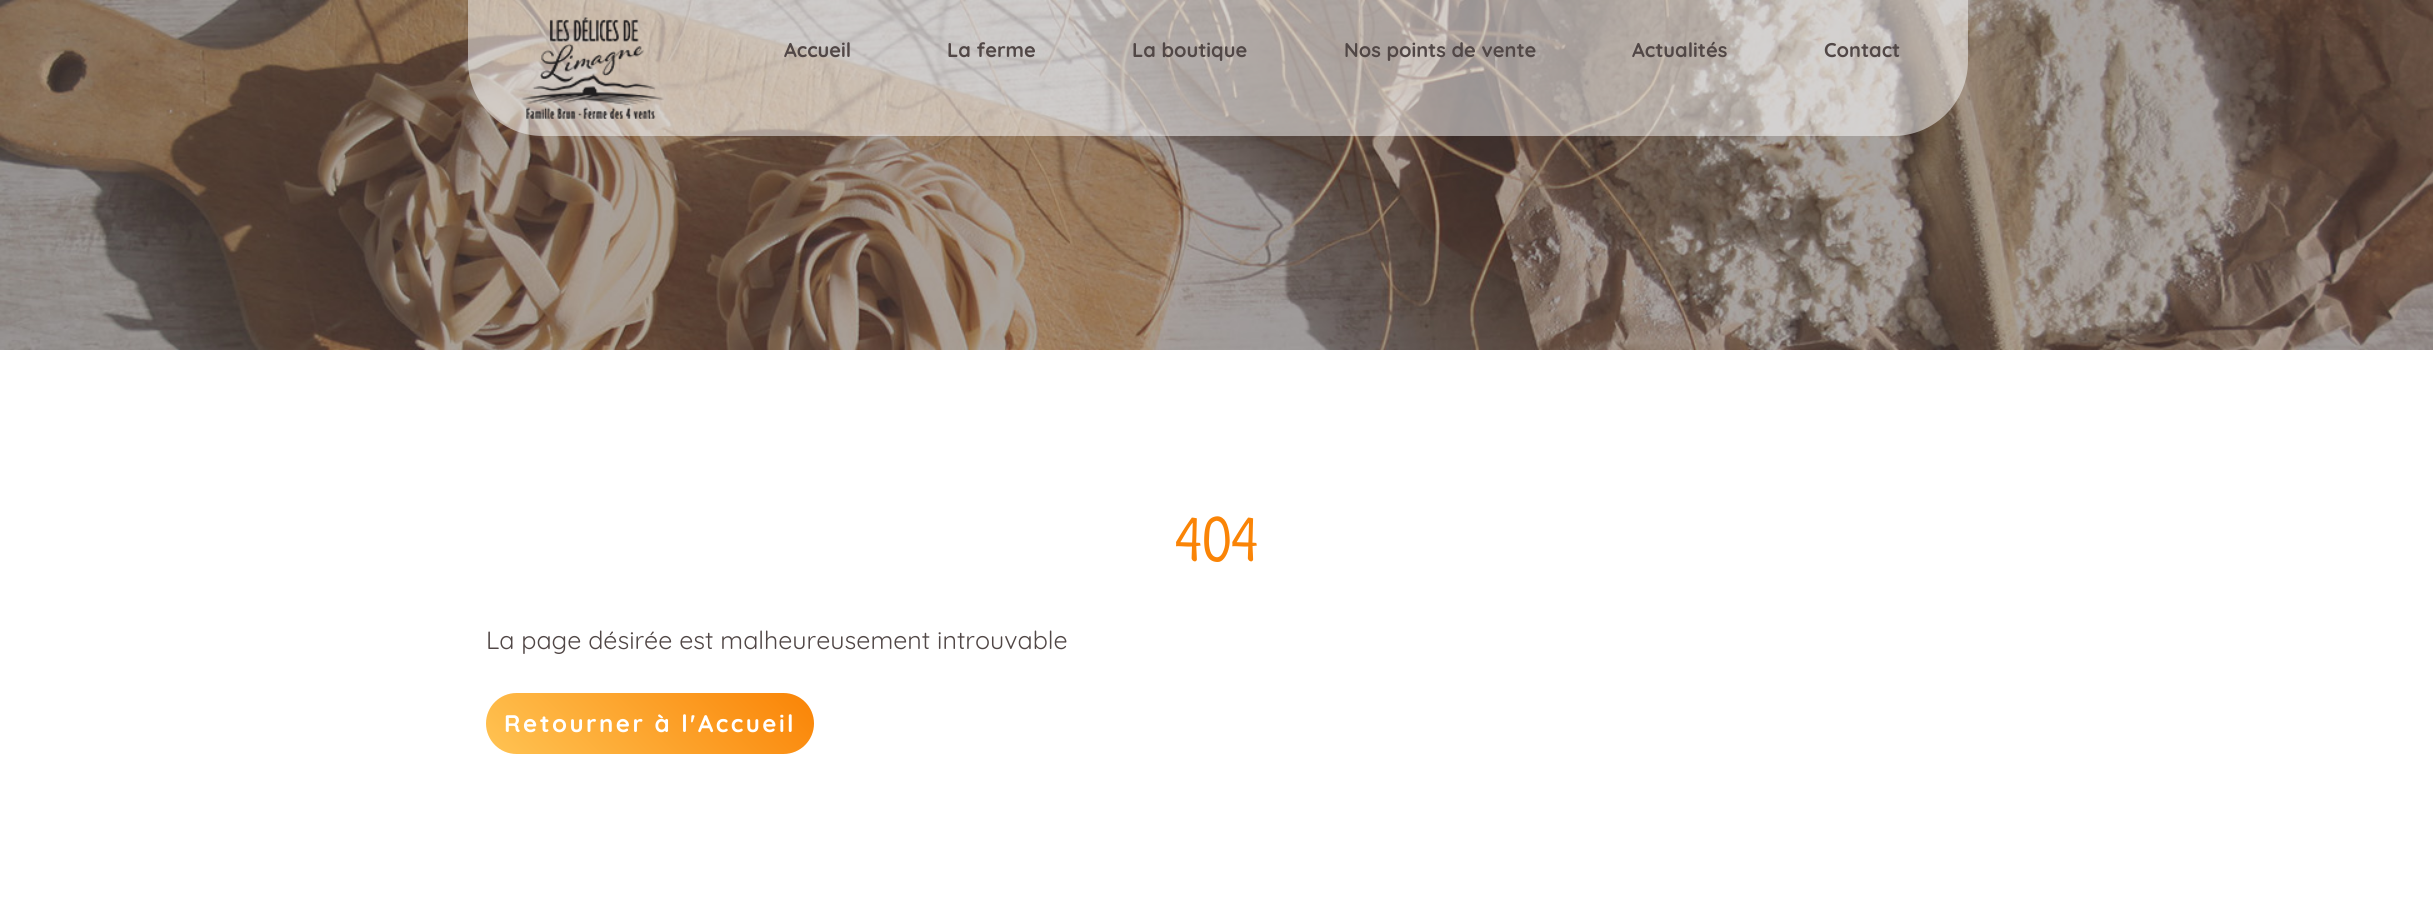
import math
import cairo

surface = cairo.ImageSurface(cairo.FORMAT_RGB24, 2433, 922)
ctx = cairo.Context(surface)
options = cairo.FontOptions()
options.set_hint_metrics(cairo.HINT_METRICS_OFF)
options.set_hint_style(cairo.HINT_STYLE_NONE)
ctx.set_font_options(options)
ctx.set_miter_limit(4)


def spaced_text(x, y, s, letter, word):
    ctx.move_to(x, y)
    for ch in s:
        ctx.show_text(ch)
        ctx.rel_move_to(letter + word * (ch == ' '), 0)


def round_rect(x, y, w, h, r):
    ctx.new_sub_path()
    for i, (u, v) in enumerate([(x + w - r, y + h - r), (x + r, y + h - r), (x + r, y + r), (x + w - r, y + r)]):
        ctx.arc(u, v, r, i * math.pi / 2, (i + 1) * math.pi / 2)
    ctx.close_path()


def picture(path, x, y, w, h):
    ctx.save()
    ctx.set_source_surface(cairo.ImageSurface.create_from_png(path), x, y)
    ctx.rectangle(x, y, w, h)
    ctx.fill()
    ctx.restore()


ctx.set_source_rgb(1, 1, 1)
ctx.paint()
picture("img1.png", 0, 0, 2433, 350)
ctx.set_source_rgba(1, 1, 1, 0.5)
ctx.new_path()
ctx.move_to(468, 0)
ctx.line_to(1968, 0)
ctx.line_to(1968, 61)
ctx.curve_to(1968, 102.5, 1934.5, 136, 1893, 136)
ctx.line_to(543, 136)
ctx.curve_to(501.5, 136, 468, 102.5, 468, 61)
ctx.close_path()
ctx.fill()
picture("img2.png", 521, 17, 143, 102)
ctx.select_font_face("Quicksand", cairo.FONT_SLANT_NORMAL, cairo.FONT_WEIGHT_BOLD)
ctx.set_font_size(20)
ctx.set_source_rgb(0.318, 0.278, 0.275)
ctx.move_to(784, 57)
ctx.show_text("Accueil")
ctx.move_to(947, 57)
ctx.show_text("La ferme")
ctx.move_to(1132, 57)
ctx.show_text("La boutique")
ctx.move_to(1344, 57)
ctx.show_text("Nos points de vente")
ctx.move_to(1632, 57)
ctx.show_text("Actualités")
ctx.move_to(1824, 57)
ctx.show_text("Contact")
ctx.select_font_face("Neucha")
ctx.set_font_size(60)
ctx.set_source_rgb(0.98, 0.518, 0.024)
ctx.move_to(1176, 560)
ctx.show_text("404")
ctx.select_font_face("Quicksand")
ctx.set_font_size(25)
ctx.set_source_rgb(0.318, 0.278, 0.275)
ctx.move_to(486, 649)
ctx.show_text("La page désirée est malheureusement introuvable")
gradient = cairo.LinearGradient(553, 820, 747, 626)
gradient.add_color_stop_rgba(0, 1, 0.765, 0.325, 1)
gradient.add_color_stop_rgba(1, 0.98, 0.518, 0.024, 1)
ctx.set_source(gradient)
round_rect(486, 693, 328, 61, 30.5)
ctx.fill()
ctx.select_font_face("Quicksand", cairo.FONT_SLANT_NORMAL, cairo.FONT_WEIGHT_BOLD)
ctx.set_font_size(24)
ctx.set_source_rgb(1, 1, 1)
spaced_text(504, 732, "Retourner à l'Accueil", 2.5, 0)
surface.write_to_png("page.png")
